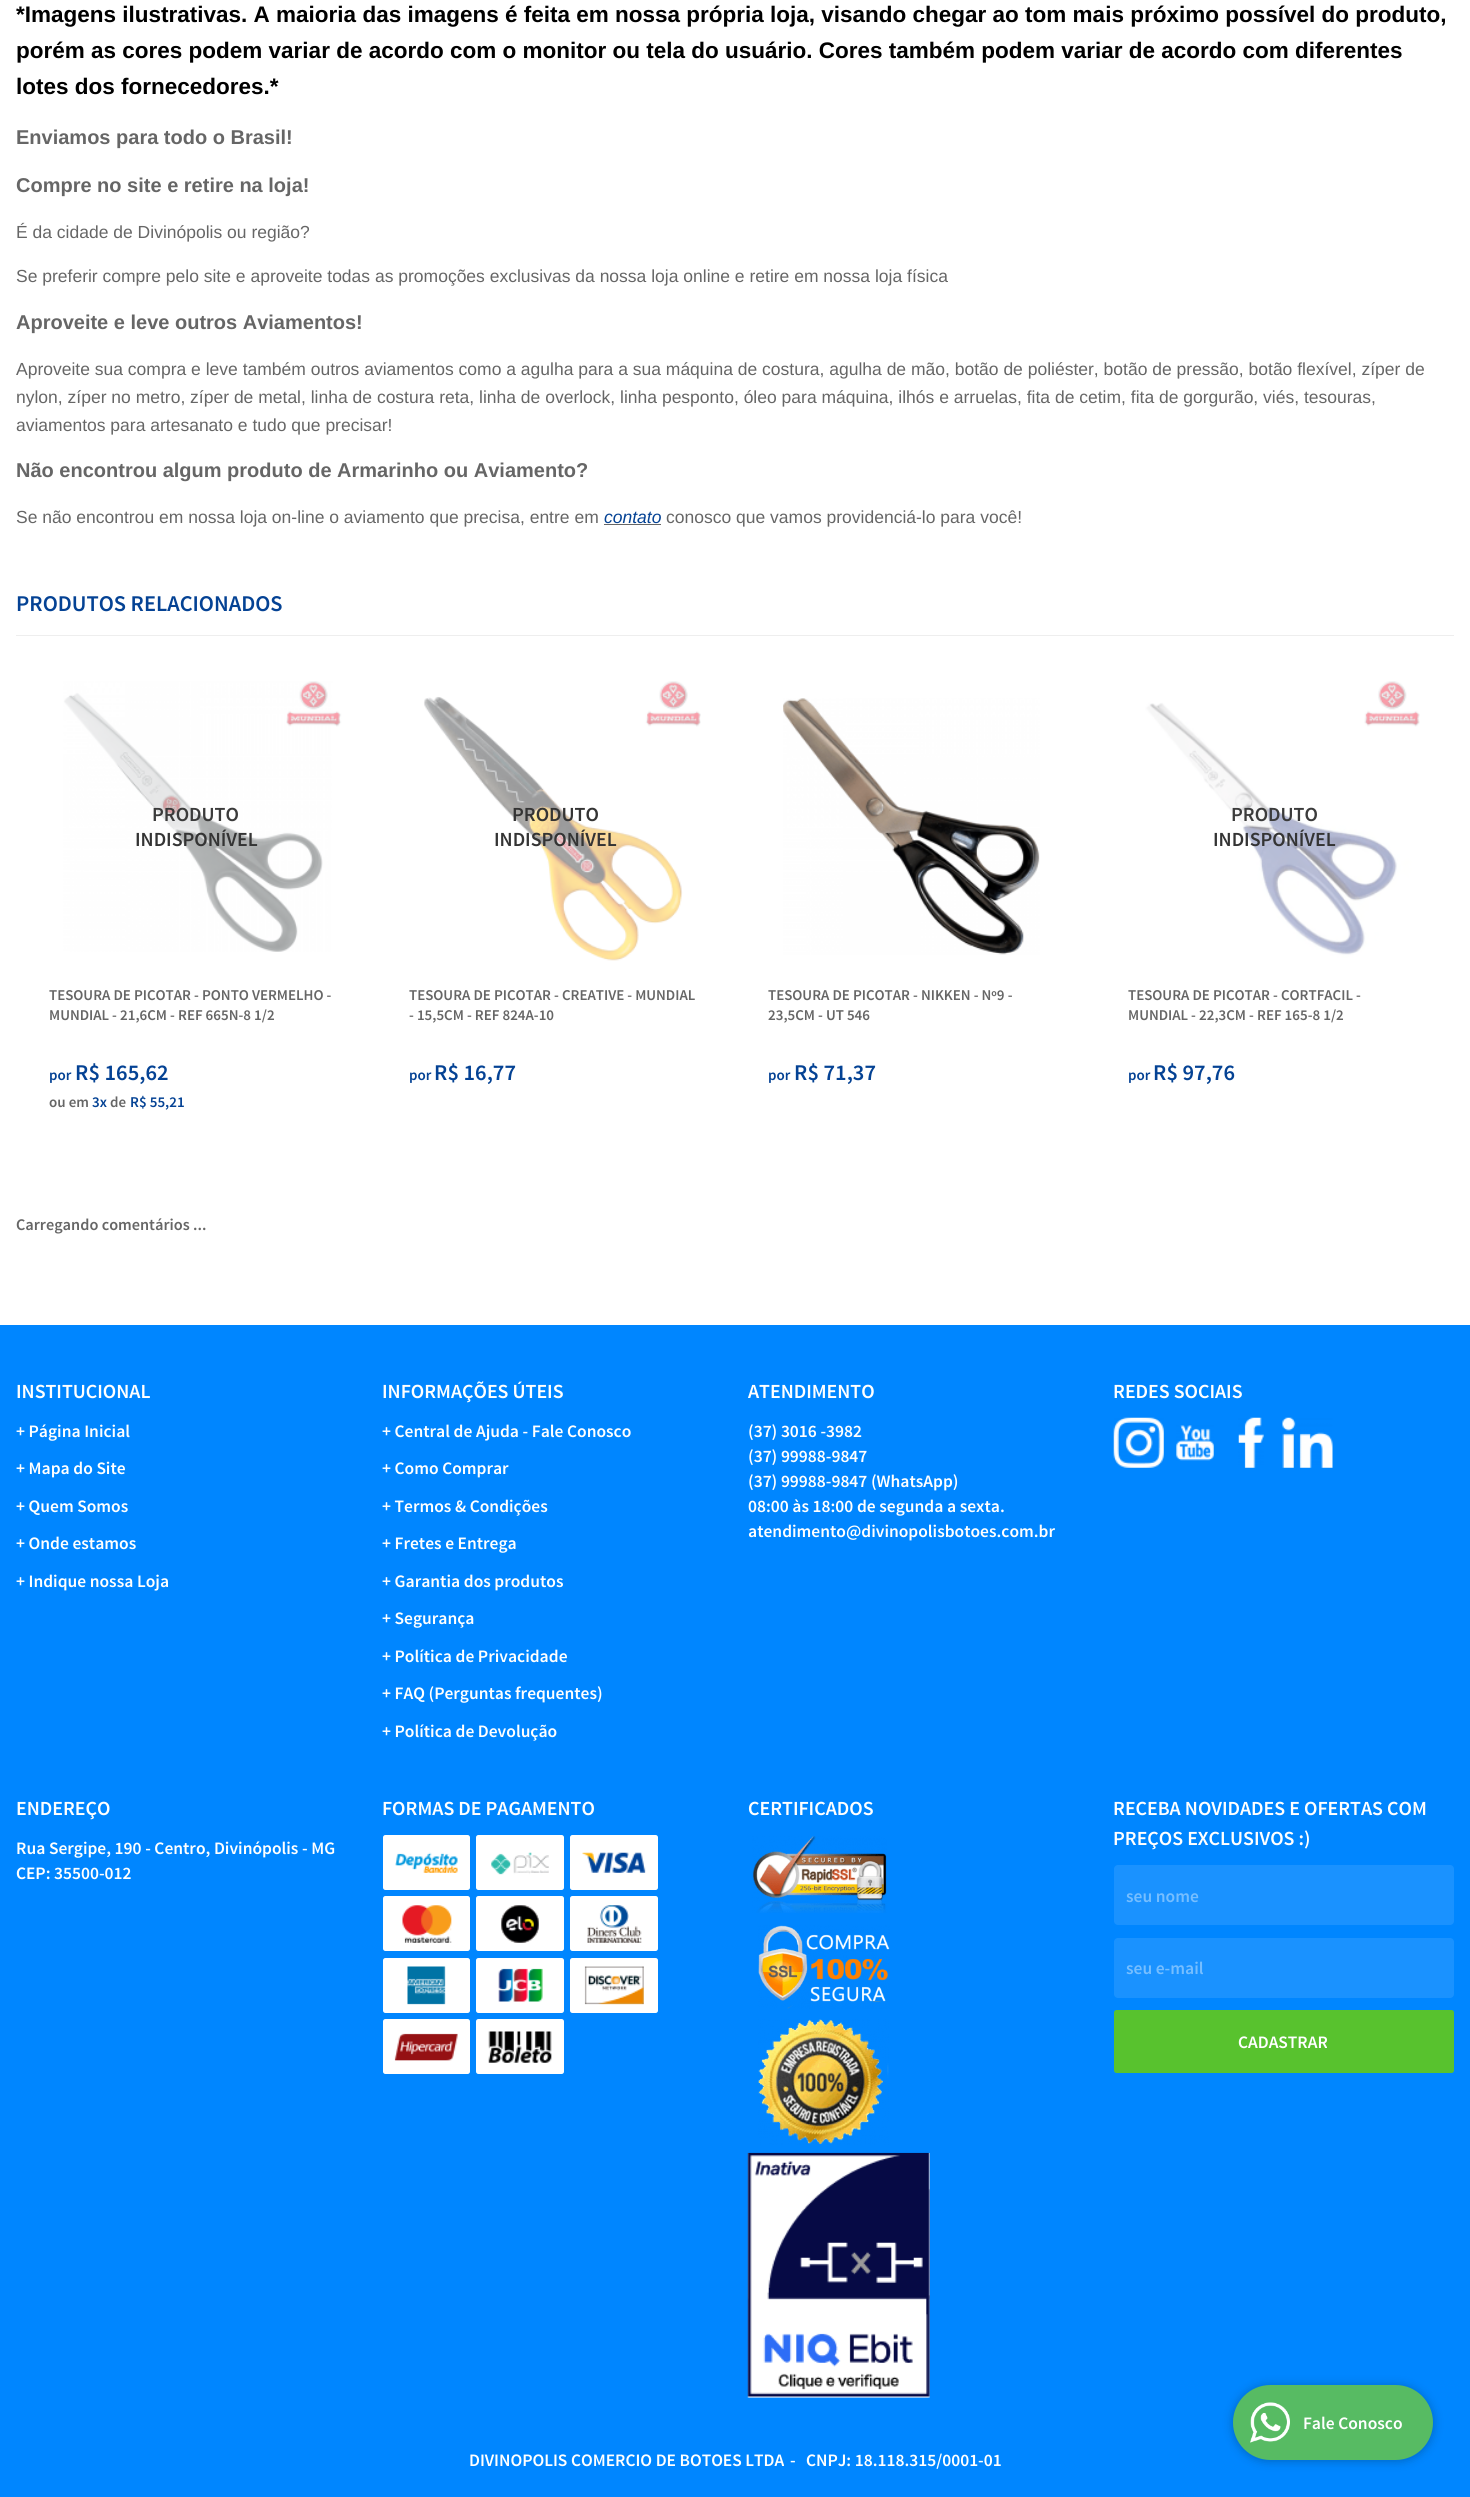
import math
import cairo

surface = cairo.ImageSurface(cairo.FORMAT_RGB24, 1470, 2497)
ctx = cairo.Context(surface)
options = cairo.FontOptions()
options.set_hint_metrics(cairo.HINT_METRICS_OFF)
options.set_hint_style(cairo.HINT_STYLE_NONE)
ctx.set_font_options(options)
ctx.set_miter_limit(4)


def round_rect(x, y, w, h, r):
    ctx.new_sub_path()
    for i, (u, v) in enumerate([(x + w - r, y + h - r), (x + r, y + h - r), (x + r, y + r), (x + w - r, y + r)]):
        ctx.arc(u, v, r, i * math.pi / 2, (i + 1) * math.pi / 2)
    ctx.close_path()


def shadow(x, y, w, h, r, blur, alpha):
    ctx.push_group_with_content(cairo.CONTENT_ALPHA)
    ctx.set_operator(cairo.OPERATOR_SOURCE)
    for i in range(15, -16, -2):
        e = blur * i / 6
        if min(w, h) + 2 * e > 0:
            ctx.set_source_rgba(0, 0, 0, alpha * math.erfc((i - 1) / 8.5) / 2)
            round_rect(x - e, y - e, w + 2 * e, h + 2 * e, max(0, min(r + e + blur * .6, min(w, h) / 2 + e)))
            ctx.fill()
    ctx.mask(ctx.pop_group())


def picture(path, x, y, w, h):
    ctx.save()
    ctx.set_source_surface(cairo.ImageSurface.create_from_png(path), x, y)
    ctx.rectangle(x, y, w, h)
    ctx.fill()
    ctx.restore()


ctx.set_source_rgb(1, 1, 1)
ctx.paint()
ctx.select_font_face("Liberation Sans", cairo.FONT_SLANT_NORMAL, cairo.FONT_WEIGHT_BOLD)
ctx.set_font_size(22.5)
ctx.set_source_rgb(0, 0, 0)
ctx.move_to(16, 22)
ctx.show_text("*Imagens ilustrativas. A maioria das imagens é feita em nossa própria loja, visando chegar ao tom mais próximo possível do produto,")
ctx.move_to(16, 58)
ctx.show_text("porém as cores podem variar de acordo com o monitor ou tela do usuário. Cores também podem variar de acordo com diferentes")
ctx.move_to(16, 94)
ctx.show_text("lotes dos fornecedores.*")
ctx.set_font_size(20)
ctx.set_source_rgb(0.4, 0.4, 0.4)
ctx.move_to(16, 144)
ctx.show_text("Enviamos para todo o Brasil!")
ctx.move_to(16, 192)
ctx.show_text("Compre no site e retire na loja!")
ctx.select_font_face("Liberation Sans")
ctx.set_font_size(17.5)
ctx.move_to(16, 238)
ctx.show_text("É da cidade de Divinópolis ou região?")
ctx.move_to(16, 282)
ctx.show_text("Se preferir compre pelo site e aproveite todas as promoções exclusivas da nossa loja online e retire em nossa loja física")
ctx.select_font_face("Liberation Sans", cairo.FONT_SLANT_NORMAL, cairo.FONT_WEIGHT_BOLD)
ctx.set_font_size(20)
ctx.move_to(16, 329)
ctx.show_text("Aproveite e leve outros Aviamentos!")
ctx.select_font_face("Liberation Sans")
ctx.set_font_size(17.5)
ctx.move_to(16, 375)
ctx.show_text("Aproveite sua compra e leve também outros aviamentos como a agulha para a sua máquina de costura, agulha de mão, botão de poliéster, botão de pressão, botão flexível, zíper de")
ctx.move_to(16, 403)
ctx.show_text("nylon, zíper no metro, zíper de metal, linha de costura reta, linha de overlock, linha pesponto, óleo para máquina, ilhós e arruelas, fita de cetim, fita de gorgurão, viés, tesouras,")
ctx.move_to(16, 431)
ctx.show_text("aviamentos para artesanato e tudo que precisar!")
ctx.select_font_face("Liberation Sans", cairo.FONT_SLANT_NORMAL, cairo.FONT_WEIGHT_BOLD)
ctx.set_font_size(20)
ctx.move_to(16, 477)
ctx.show_text("Não encontrou algum produto de Armarinho ou Aviamento?")
ctx.select_font_face("Liberation Sans")
ctx.set_font_size(17.5)
ctx.move_to(16, 523)
ctx.show_text("Se não encontrou em nossa loja on-line o aviamento que precisa, entre em")
ctx.select_font_face("Liberation Sans", cairo.FONT_SLANT_ITALIC)
ctx.set_source_rgb(0.016, 0.259, 0.58)
ctx.move_to(604, 523)
ctx.show_text("contato")
ctx.set_source_rgb(0.4, 0.4, 0.4)
ctx.rectangle(604, 524, 57, 1)
ctx.fill()
ctx.select_font_face("Liberation Sans")
ctx.move_to(666, 523)
ctx.show_text("conosco que vamos providenciá-lo para você!")
ctx.set_source_rgb(0.933, 0.933, 0.933)
ctx.rectangle(16, 635, 1438, 1)
ctx.fill()
ctx.select_font_face("Source Sans Pro SemiBold")
ctx.set_font_size(22.5)
ctx.set_source_rgb(0.016, 0.259, 0.58)
ctx.move_to(16, 611)
ctx.show_text("PRODUTOS RELACIONADOS")
picture("img1.png", 63, 681, 279, 271)
ctx.set_font_size(20)
ctx.set_source_rgb(0.231, 0.231, 0.231)
ctx.move_to(152, 821)
ctx.show_text("PRODUTO")
ctx.set_source_rgb(0.204, 0.204, 0.204)
ctx.move_to(135, 846)
ctx.show_text("INDISPONÍVEL")
ctx.set_font_size(15)
ctx.set_source_rgb(0.4, 0.4, 0.4)
ctx.move_to(49, 1000)
ctx.show_text("TESOURA DE PICOTAR - PONTO VERMELHO -")
ctx.move_to(49, 1020)
ctx.show_text("MUNDIAL - 21,6CM - REF 665N-8 1/2")
ctx.set_source_rgb(0.016, 0.259, 0.58)
ctx.move_to(49, 1080)
ctx.show_text("por")
ctx.set_font_size(22.5)
ctx.move_to(75, 1080)
ctx.show_text("R$ 165,62")
ctx.set_font_size(15)
ctx.set_source_rgb(0.4, 0.4, 0.4)
ctx.move_to(49, 1107)
ctx.show_text("ou em")
ctx.set_source_rgb(0.016, 0.259, 0.58)
ctx.move_to(92, 1107)
ctx.show_text("3x")
ctx.set_source_rgb(0.4, 0.4, 0.4)
ctx.move_to(110, 1107)
ctx.show_text("de")
ctx.set_source_rgb(0.016, 0.259, 0.58)
ctx.move_to(130, 1107)
ctx.show_text("R$ 55,21")
picture("img2.png", 423, 681, 278, 280)
ctx.set_font_size(20)
ctx.set_source_rgb(0.204, 0.204, 0.204)
ctx.move_to(512, 821)
ctx.show_text("PRODUTO")
ctx.move_to(494, 846)
ctx.show_text("INDISPONÍVEL")
ctx.set_font_size(15)
ctx.set_source_rgb(0.4, 0.4, 0.4)
ctx.move_to(409, 1000)
ctx.show_text("TESOURA DE PICOTAR - CREATIVE - MUNDIAL")
ctx.move_to(409, 1020)
ctx.show_text("- 15,5CM - REF 824A-10")
ctx.set_source_rgb(0.016, 0.259, 0.58)
ctx.move_to(409, 1080)
ctx.show_text("por")
ctx.set_font_size(22.5)
ctx.move_to(434, 1080)
ctx.show_text("R$ 16,77")
picture("img3.png", 783, 698, 257, 257)
ctx.set_font_size(15)
ctx.set_source_rgb(0.4, 0.4, 0.4)
ctx.move_to(768, 1000)
ctx.show_text("TESOURA DE PICOTAR - NIKKEN - Nº9 -")
ctx.move_to(768, 1020)
ctx.show_text("23,5CM - UT 546")
ctx.set_source_rgb(0.016, 0.259, 0.58)
ctx.move_to(768, 1080)
ctx.show_text("por")
ctx.set_font_size(22.5)
ctx.move_to(794, 1080)
ctx.show_text("R$ 71,37")
picture("img4.png", 1145, 681, 275, 277)
ctx.set_font_size(20)
ctx.set_source_rgb(0.231, 0.231, 0.231)
ctx.move_to(1231, 821)
ctx.show_text("PRODUTO")
ctx.set_source_rgb(0.204, 0.204, 0.204)
ctx.move_to(1213, 846)
ctx.show_text("INDISPONÍVEL")
ctx.set_font_size(15)
ctx.set_source_rgb(0.4, 0.4, 0.4)
ctx.move_to(1128, 1000)
ctx.show_text("TESOURA DE PICOTAR - CORTFACIL -")
ctx.move_to(1128, 1020)
ctx.show_text("MUNDIAL - 22,3CM - REF 165-8 1/2")
ctx.set_source_rgb(0.016, 0.259, 0.58)
ctx.move_to(1128, 1080)
ctx.show_text("por")
ctx.set_font_size(22.5)
ctx.move_to(1153, 1080)
ctx.show_text("R$ 97,76")
ctx.set_font_size(16.25)
ctx.set_source_rgb(0.4, 0.4, 0.4)
ctx.move_to(16, 1230)
ctx.show_text("Carregando comentários ...")
ctx.set_source_rgb(0, 0.525, 1)
ctx.rectangle(0, 1325, 1470, 1172)
ctx.fill()
ctx.set_font_size(20)
ctx.set_source_rgb(1, 1, 1)
ctx.move_to(16, 1398)
ctx.show_text("INSTITUCIONAL")
ctx.set_font_size(17.5)
ctx.move_to(16, 1437)
ctx.show_text("+ Página Inicial")
ctx.move_to(16, 1474)
ctx.show_text("+ Mapa do Site")
ctx.move_to(16, 1512)
ctx.show_text("+ Quem Somos")
ctx.move_to(16, 1549)
ctx.show_text("+ Onde estamos")
ctx.move_to(16, 1587)
ctx.show_text("+ Indique nossa Loja")
ctx.set_font_size(20)
ctx.move_to(382, 1398)
ctx.show_text("INFORMAÇÕES ÚTEIS")
ctx.set_font_size(17.5)
ctx.move_to(382, 1437)
ctx.show_text("+ Central de Ajuda - Fale Conosco")
ctx.move_to(382, 1474)
ctx.show_text("+ Como Comprar")
ctx.move_to(382, 1512)
ctx.show_text("+ Termos & Condições")
ctx.move_to(382, 1549)
ctx.show_text("+ Fretes e Entrega")
ctx.move_to(382, 1587)
ctx.show_text("+ Garantia dos produtos")
ctx.move_to(382, 1624)
ctx.show_text("+ Segurança")
ctx.move_to(382, 1662)
ctx.show_text("+ Política de Privacidade")
ctx.move_to(382, 1699)
ctx.show_text("+ FAQ (Perguntas frequentes)")
ctx.move_to(382, 1737)
ctx.show_text("+ Política de Devolução")
ctx.set_font_size(20)
ctx.move_to(748, 1398)
ctx.show_text("ATENDIMENTO")
ctx.set_font_size(17.5)
ctx.move_to(748, 1437)
ctx.show_text("(37) 3016 -3982")
ctx.move_to(748, 1462)
ctx.show_text("(37) 99988-9847")
ctx.move_to(748, 1487)
ctx.show_text("(37) 99988-9847 (WhatsApp)")
ctx.move_to(748, 1512)
ctx.show_text("08:00 às 18:00 de segunda a sexta.")
ctx.move_to(748, 1537)
ctx.show_text("atendimento@divinopolisbotoes.com.br")
ctx.set_font_size(20)
ctx.move_to(1113, 1398)
ctx.show_text("REDES SOCIAIS")
picture("img5.png", 1113, 1417, 51, 51)
picture("img6.png", 1176, 1425, 38, 36)
picture("img7.png", 1238, 1417, 26, 51)
picture("img8.png", 1282, 1417, 51, 51)
ctx.move_to(16, 1815)
ctx.show_text("ENDEREÇO")
ctx.set_font_size(17.5)
ctx.move_to(16, 1854)
ctx.show_text("Rua Sergipe, 190 - Centro, Divinópolis - MG")
ctx.move_to(16, 1879)
ctx.show_text("CEP: 35500-012")
ctx.set_font_size(20)
ctx.move_to(382, 1815)
ctx.show_text("FORMAS DE PAGAMENTO")
round_rect(383, 1835, 87, 55, 2.5)
ctx.fill()
round_rect(383.5, 1835.5, 86, 54, 2)
ctx.set_source_rgba(1, 1, 1, 0.2)
ctx.set_line_width(1)
ctx.stroke()
picture("img9.png", 395, 1852, 63, 21)
ctx.set_source_rgb(1, 1, 1)
round_rect(476, 1835, 88, 55, 2.5)
ctx.fill()
round_rect(476.5, 1835.5, 87, 54, 2)
ctx.set_source_rgba(1, 1, 1, 0.2)
ctx.stroke()
picture("img10.png", 491, 1852, 58, 23)
ctx.set_source_rgb(1, 1, 1)
round_rect(570, 1835, 88, 55, 2.5)
ctx.fill()
round_rect(570.5, 1835.5, 87, 54, 2)
ctx.set_source_rgba(1, 1, 1, 0.2)
ctx.stroke()
picture("img11.png", 582, 1852, 64, 21)
ctx.set_source_rgb(1, 1, 1)
round_rect(383, 1896, 87, 55, 2.5)
ctx.fill()
round_rect(383.5, 1896.5, 86, 54, 2)
ctx.set_source_rgba(1, 1, 1, 0.2)
ctx.stroke()
picture("img12.png", 402, 1905, 50, 38)
ctx.set_source_rgb(1, 1, 1)
round_rect(476, 1896, 88, 55, 2.5)
ctx.fill()
round_rect(476.5, 1896.5, 87, 54, 2)
ctx.set_source_rgba(1, 1, 1, 0.2)
ctx.stroke()
picture("img13.png", 501, 1905, 38, 38)
ctx.set_source_rgb(1, 1, 1)
round_rect(570, 1896, 88, 55, 2.5)
ctx.fill()
round_rect(570.5, 1896.5, 87, 54, 2)
ctx.set_source_rgba(1, 1, 1, 0.2)
ctx.stroke()
picture("img14.png", 587, 1905, 55, 38)
ctx.set_source_rgb(1, 1, 1)
round_rect(383, 1958, 87, 55, 2.5)
ctx.fill()
round_rect(383.5, 1958.5, 86, 54, 2)
ctx.set_source_rgba(1, 1, 1, 0.2)
ctx.stroke()
picture("img15.png", 407, 1966, 39, 39)
ctx.set_source_rgb(1, 1, 1)
round_rect(476, 1958, 88, 55, 2.5)
ctx.fill()
round_rect(476.5, 1958.5, 87, 54, 2)
ctx.set_source_rgba(1, 1, 1, 0.2)
ctx.stroke()
picture("img16.png", 498, 1968, 45, 34)
ctx.set_source_rgb(1, 1, 1)
round_rect(570, 1958, 88, 55, 2.5)
ctx.fill()
round_rect(570.5, 1958.5, 87, 54, 2)
ctx.set_source_rgba(1, 1, 1, 0.2)
ctx.stroke()
picture("img17.png", 584, 1966, 60, 39)
ctx.set_source_rgb(1, 1, 1)
round_rect(383, 2019, 87, 55, 2.5)
ctx.fill()
round_rect(383.5, 2019.5, 86, 54, 2)
ctx.set_source_rgba(1, 1, 1, 0.2)
ctx.stroke()
picture("img18.png", 394, 2033, 64, 28)
ctx.set_source_rgb(1, 1, 1)
round_rect(476, 2019, 88, 55, 2.5)
ctx.fill()
round_rect(476.5, 2019.5, 87, 54, 2)
ctx.set_source_rgba(1, 1, 1, 0.2)
ctx.stroke()
picture("img19.png", 488, 2031, 64, 32)
ctx.set_source_rgb(1, 1, 1)
ctx.move_to(748, 1815)
ctx.show_text("CERTIFICADOS")
picture("img20.png", 752, 1836, 135, 77)
picture("img21.png", 758, 1925, 132, 84)
picture("img22.png", 758, 2019, 131, 126)
picture("img23.png", 747, 2152, 183, 246)
ctx.move_to(1113, 1815)
ctx.show_text("RECEBA NOVIDADES E OFERTAS COM")
ctx.move_to(1113, 1845)
ctx.show_text("PREÇOS EXCLUSIVOS :)")
ctx.set_source_rgb(0.102, 0.573, 1)
round_rect(1114, 1865, 340, 60, 4)
ctx.fill()
ctx.set_font_size(17.5)
ctx.set_source_rgb(0.463, 0.745, 1)
ctx.move_to(1126, 1902)
ctx.show_text("seu nome")
ctx.set_source_rgb(0.102, 0.573, 1)
round_rect(1114, 1938, 340, 60, 4)
ctx.fill()
ctx.set_source_rgb(0.463, 0.745, 1)
ctx.move_to(1126, 1974)
ctx.show_text("seu e-mail")
ctx.set_source_rgb(0.345, 0.761, 0.18)
round_rect(1114, 2010, 340, 63, 2.5)
ctx.fill()
ctx.set_source_rgb(1, 1, 1)
ctx.move_to(1238, 2048)
ctx.show_text("CADASTRAR")
ctx.move_to(469, 2466)
ctx.show_text("DIVINOPOLIS COMERCIO DE BOTOES LTDA")
ctx.move_to(790, 2466)
ctx.show_text("-")
ctx.move_to(806, 2466)
ctx.show_text("CNPJ: 18.118.315/0001-01")
ctx.set_source_rgb(0, 0, 0)
shadow(1233, 2386, 200, 75, 37.5, 5, 0.25)
ctx.set_source_rgb(0.341, 0.733, 0.388)
round_rect(1233, 2385, 200, 75, 37.5)
ctx.fill()
picture("img24.png", 1250, 2402, 40, 41)
ctx.set_source_rgb(1, 1, 1)
ctx.move_to(1303, 2429)
ctx.show_text("Fale Conosco")
surface.write_to_png("page.png")
